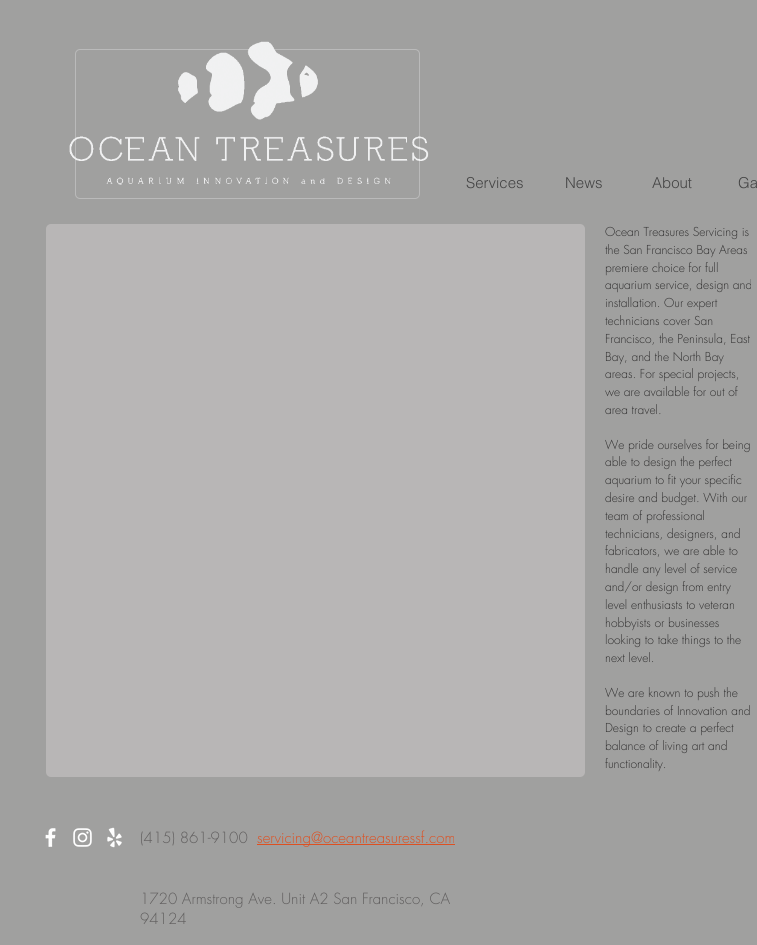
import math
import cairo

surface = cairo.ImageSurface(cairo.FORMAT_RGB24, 757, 945)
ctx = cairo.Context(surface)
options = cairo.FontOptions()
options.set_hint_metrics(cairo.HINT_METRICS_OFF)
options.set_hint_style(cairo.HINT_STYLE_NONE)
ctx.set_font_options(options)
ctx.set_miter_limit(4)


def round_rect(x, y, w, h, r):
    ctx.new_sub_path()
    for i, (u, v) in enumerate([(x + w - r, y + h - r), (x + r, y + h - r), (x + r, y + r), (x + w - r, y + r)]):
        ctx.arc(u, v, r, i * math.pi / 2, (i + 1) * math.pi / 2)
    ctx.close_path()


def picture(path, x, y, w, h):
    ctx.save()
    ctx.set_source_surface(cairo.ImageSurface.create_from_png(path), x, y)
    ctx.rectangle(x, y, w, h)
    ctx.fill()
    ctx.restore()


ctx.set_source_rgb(0.627, 0.627, 0.624)
ctx.paint()
round_rect(75.5, 49.5, 344, 149, 4.5)
ctx.set_source_rgb(0.729, 0.729, 0.729)
ctx.set_line_width(1)
ctx.stroke()
picture("img1.png", 69, 41, 360, 144)
ctx.select_font_face("helvetica Light")
ctx.set_font_size(15)
ctx.set_source_rgb(0.267, 0.267, 0.267)
ctx.move_to(466, 188)
ctx.show_text("Services")
ctx.move_to(565, 188)
ctx.show_text("News")
ctx.move_to(652, 188)
ctx.show_text("About")
ctx.move_to(738, 188)
ctx.show_text("Ga")
ctx.set_source_rgb(0.722, 0.714, 0.714)
round_rect(46, 224, 539, 553, 5)
ctx.fill()
ctx.select_font_face("futura Light")
ctx.set_font_size(12)
ctx.set_source_rgb(0.184, 0.18, 0.18)
ctx.move_to(605, 236)
ctx.show_text("Ocean Treasures Servicing is")
ctx.move_to(605, 254)
ctx.show_text("the San Francisco Bay Areas")
ctx.move_to(605, 272)
ctx.show_text("premiere choice for full")
ctx.move_to(605, 289)
ctx.show_text("aquarium service, design and")
ctx.move_to(605, 307)
ctx.show_text("installation. Our expert")
ctx.move_to(605, 325)
ctx.show_text("technicians cover San")
ctx.move_to(605, 343)
ctx.show_text("Francisco, the Peninsula, East")
ctx.move_to(605, 361)
ctx.show_text("Bay, and the North Bay")
ctx.move_to(605, 378)
ctx.show_text("areas. For special projects,")
ctx.move_to(605, 396)
ctx.show_text("we are available for out of")
ctx.move_to(605, 414)
ctx.show_text("area travel.")
ctx.move_to(605, 449)
ctx.show_text("We pride ourselves for being")
ctx.move_to(605, 466)
ctx.show_text("able to design the perfect")
ctx.move_to(605, 484)
ctx.show_text("aquarium to fit your specific")
ctx.move_to(605, 502)
ctx.show_text("desire and budget. With our")
ctx.move_to(605, 520)
ctx.show_text("team of professional")
ctx.move_to(605, 538)
ctx.show_text("technicians, designers, and")
ctx.move_to(605, 555)
ctx.show_text("fabricators, we are able to")
ctx.move_to(605, 573)
ctx.show_text("handle any level of service")
ctx.move_to(605, 591)
ctx.show_text("and/or design from entry")
ctx.move_to(605, 609)
ctx.show_text("level enthusiasts to veteran")
ctx.move_to(605, 627)
ctx.show_text("hobbyists or businesses")
ctx.move_to(605, 644)
ctx.show_text("looking to take things to the")
ctx.move_to(605, 662)
ctx.show_text("next level.")
ctx.move_to(605, 697)
ctx.show_text("We are known to push the")
ctx.move_to(605, 715)
ctx.show_text("boundaries of Innovation and")
ctx.move_to(605, 732)
ctx.show_text("Design to create a perfect")
ctx.move_to(605, 750)
ctx.show_text("balance of living art and")
ctx.move_to(605, 768)
ctx.show_text("functionality.")
picture("img2.png", 45, 828, 11, 19)
picture("img3.png", 73, 828, 19, 19)
picture("img4.png", 107, 827, 15, 21)
ctx.set_font_size(15)
ctx.set_source_rgb(0.376, 0.369, 0.369)
ctx.move_to(140, 843)
ctx.show_text("(415) 861-9100")
ctx.set_source_rgb(0.871, 0.314, 0.129)
ctx.rectangle(257, 844, 198, 1)
ctx.fill()
ctx.move_to(257, 843)
ctx.show_text("servicing@oceantreasuressf.com")
ctx.set_source_rgb(0.376, 0.369, 0.369)
ctx.move_to(140, 904)
ctx.show_text("1720 Armstrong Ave. Unit A2 San Francisco, CA")
ctx.move_to(140, 924)
ctx.show_text("94124")
surface.write_to_png("page.png")
